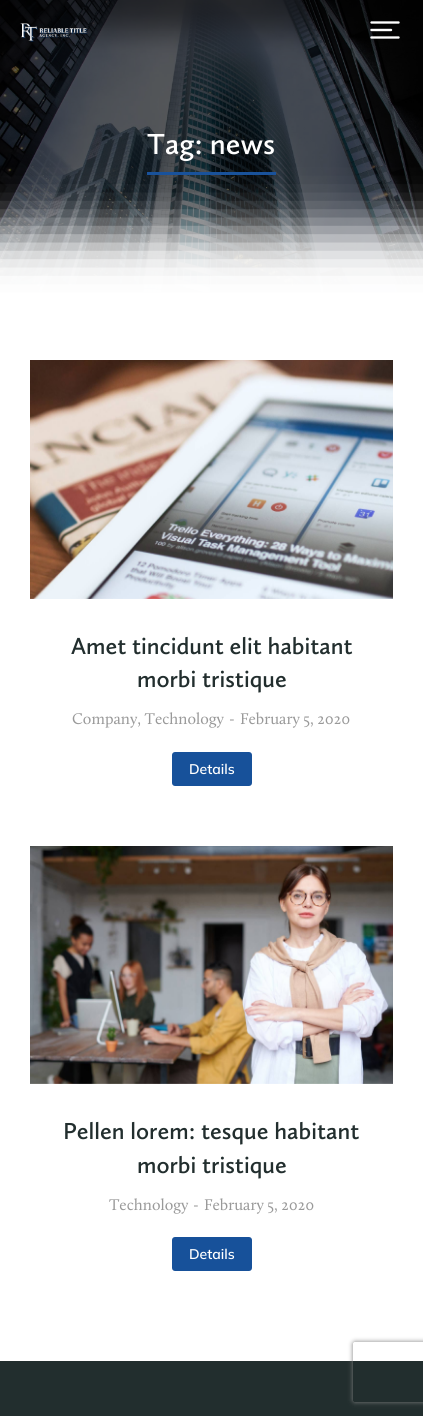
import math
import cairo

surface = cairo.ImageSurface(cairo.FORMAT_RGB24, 423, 1416)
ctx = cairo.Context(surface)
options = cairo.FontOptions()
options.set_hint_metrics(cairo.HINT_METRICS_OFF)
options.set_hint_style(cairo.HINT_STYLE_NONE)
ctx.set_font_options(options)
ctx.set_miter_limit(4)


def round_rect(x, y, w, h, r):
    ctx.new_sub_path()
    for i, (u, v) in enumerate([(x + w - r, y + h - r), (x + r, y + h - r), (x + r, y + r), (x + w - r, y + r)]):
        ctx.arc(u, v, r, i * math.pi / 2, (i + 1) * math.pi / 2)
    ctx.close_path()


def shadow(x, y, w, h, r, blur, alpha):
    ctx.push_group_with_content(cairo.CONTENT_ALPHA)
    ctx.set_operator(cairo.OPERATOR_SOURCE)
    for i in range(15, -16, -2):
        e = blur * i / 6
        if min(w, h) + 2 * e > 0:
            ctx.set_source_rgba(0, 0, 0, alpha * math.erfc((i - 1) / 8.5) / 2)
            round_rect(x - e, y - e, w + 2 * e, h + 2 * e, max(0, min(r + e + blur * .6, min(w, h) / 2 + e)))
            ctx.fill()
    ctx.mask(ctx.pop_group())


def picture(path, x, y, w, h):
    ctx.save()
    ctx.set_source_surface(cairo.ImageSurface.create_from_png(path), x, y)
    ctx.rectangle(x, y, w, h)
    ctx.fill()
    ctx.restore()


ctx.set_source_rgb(1, 1, 1)
ctx.paint()
picture("img3.png", 0, 0, 423, 300)
picture("img1.png", 20, 23, 68, 19)
picture("img2.png", 370, 21, 30, 18)
ctx.set_source_rgb(0.09, 0.318, 0.604)
ctx.rectangle(147, 172, 129, 3)
ctx.fill()
ctx.select_font_face("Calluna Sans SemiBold")
ctx.set_font_size(30)
ctx.set_source_rgb(1, 1, 1)
ctx.move_to(147, 154)
ctx.show_text("Tag: news")
ctx.save()
ctx.set_fill_rule(cairo.FILL_RULE_EVEN_ODD)
ctx.new_path()
ctx.move_to(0, 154)
ctx.line_to(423, 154)
ctx.line_to(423, 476)
ctx.line_to(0, 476)
ctx.close_path()
ctx.move_to(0, 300)
ctx.line_to(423, 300)
ctx.line_to(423, 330)
ctx.line_to(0, 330)
ctx.close_path()
ctx.clip()
ctx.set_source_rgb(1, 1, 1)
shadow(-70, 230, 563, 170, 0, 25, 1)
ctx.restore()
picture("img4.png", 30, 360, 363, 239)
ctx.set_font_size(24)
ctx.set_source_rgb(0.133, 0.18, 0.18)
ctx.move_to(71, 654)
ctx.show_text("Amet tincidunt elit habitant")
ctx.move_to(137, 687)
ctx.show_text("morbi tristique")
ctx.select_font_face("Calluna")
ctx.set_font_size(16)
ctx.set_source_rgb(0.6, 0.6, 0.6)
ctx.move_to(72, 724)
ctx.show_text("Company, Technology")
ctx.move_to(229, 724)
ctx.show_text("-")
ctx.move_to(240, 724)
ctx.show_text("February 5, 2020")
ctx.set_source_rgb(0.09, 0.318, 0.604)
round_rect(172, 752, 80, 34, 3)
ctx.fill()
ctx.select_font_face("Mulish SemiBold")
ctx.set_font_size(14)
ctx.set_source_rgb(1, 1, 1)
ctx.move_to(189, 774)
ctx.show_text("Details")
picture("img5.png", 30, 846, 363, 238)
ctx.select_font_face("Calluna Sans SemiBold")
ctx.set_font_size(24)
ctx.set_source_rgb(0.133, 0.18, 0.18)
ctx.move_to(63, 1139)
ctx.show_text("Pellen lorem: tesque habitant")
ctx.move_to(137, 1173)
ctx.show_text("morbi tristique")
ctx.select_font_face("Calluna")
ctx.set_font_size(16)
ctx.set_source_rgb(0.6, 0.6, 0.6)
ctx.move_to(109, 1210)
ctx.show_text("Technology")
ctx.move_to(193, 1210)
ctx.show_text("-")
ctx.move_to(204, 1210)
ctx.show_text("February 5, 2020")
ctx.set_source_rgb(0.09, 0.318, 0.604)
round_rect(172, 1237, 80, 34, 3)
ctx.fill()
ctx.select_font_face("Mulish SemiBold")
ctx.set_font_size(14)
ctx.set_source_rgb(1, 1, 1)
ctx.move_to(189, 1259)
ctx.show_text("Details")
ctx.set_source_rgb(0.133, 0.18, 0.18)
ctx.rectangle(0, 1361, 423, 55)
ctx.fill()
ctx.save()
ctx.set_fill_rule(cairo.FILL_RULE_EVEN_ODD)
ctx.new_path()
ctx.move_to(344, 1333)
ctx.line_to(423, 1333)
ctx.line_to(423, 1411)
ctx.line_to(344, 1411)
ctx.close_path()
ctx.move_to(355, 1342)
ctx.line_to(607, 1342)
ctx.curve_to(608, 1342, 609, 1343, 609, 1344)
ctx.line_to(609, 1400)
ctx.curve_to(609, 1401, 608, 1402, 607, 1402)
ctx.line_to(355, 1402)
ctx.curve_to(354, 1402, 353, 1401, 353, 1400)
ctx.line_to(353, 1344)
ctx.curve_to(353, 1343, 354, 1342, 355, 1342)
ctx.close_path()
ctx.clip()
ctx.set_source_rgb(0.502, 0.502, 0.502)
shadow(353, 1342, 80, 60, 2, 2.5, 1)
ctx.restore()
surface.write_to_png("page.png")
